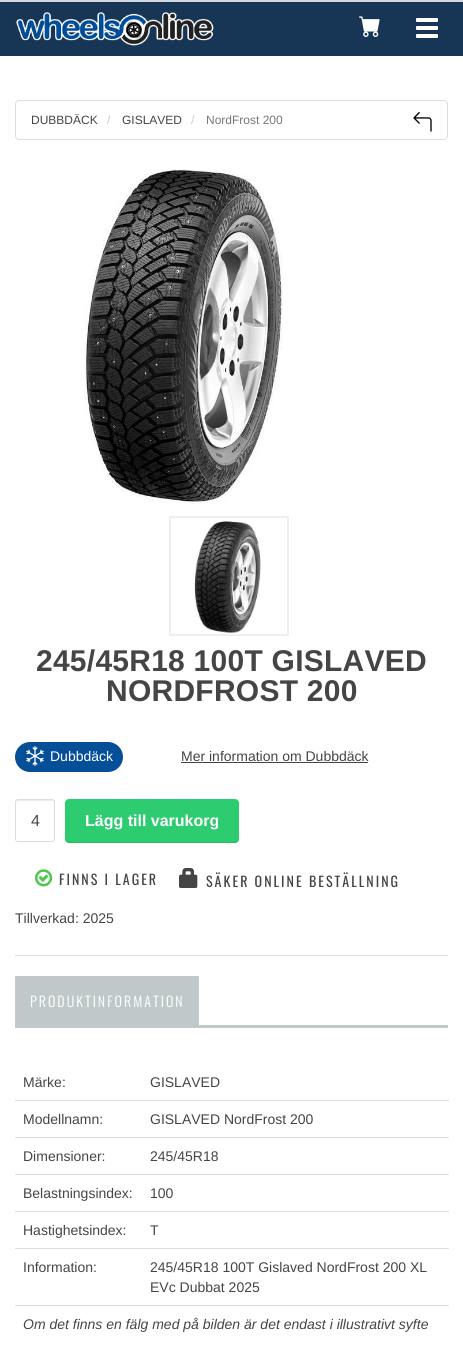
import math
import cairo

surface = cairo.ImageSurface(cairo.FORMAT_RGB24, 463, 1346)
ctx = cairo.Context(surface)
options = cairo.FontOptions()
options.set_hint_metrics(cairo.HINT_METRICS_OFF)
options.set_hint_style(cairo.HINT_STYLE_NONE)
ctx.set_font_options(options)
ctx.set_miter_limit(4)


def spaced_text(x, y, s, letter, word):
    ctx.move_to(x, y)
    for ch in s:
        ctx.show_text(ch)
        ctx.rel_move_to(letter + word * (ch == ' '), 0)


def round_rect(x, y, w, h, r):
    ctx.new_sub_path()
    for i, (u, v) in enumerate([(x + w - r, y + h - r), (x + r, y + h - r), (x + r, y + r), (x + w - r, y + r)]):
        ctx.arc(u, v, r, i * math.pi / 2, (i + 1) * math.pi / 2)
    ctx.close_path()


def picture(path, x, y, w, h):
    ctx.save()
    ctx.set_source_surface(cairo.ImageSurface.create_from_png(path), x, y)
    ctx.rectangle(x, y, w, h)
    ctx.fill()
    ctx.restore()


ctx.set_source_rgb(1, 1, 1)
ctx.paint()
ctx.set_source_rgb(0.82, 0.843, 0.867)
ctx.rectangle(0, 0, 463, 2)
ctx.fill()
ctx.set_source_rgb(0.09, 0.208, 0.333)
ctx.rectangle(0, 2, 463, 54)
ctx.fill()
picture("img1.png", 16, 12, 198, 34)
picture("img2.png", 359, 16, 21, 21)
ctx.set_source_rgb(1, 1, 1)
round_rect(416, 18, 22, 4, 1)
ctx.fill()
round_rect(416, 26, 22, 4, 1)
ctx.fill()
round_rect(416, 34, 22, 4, 1)
ctx.fill()
round_rect(15.5, 100.5, 432, 39, 3.5)
ctx.set_source_rgb(0.867, 0.867, 0.867)
ctx.set_line_width(1)
ctx.stroke()
ctx.select_font_face("Liberation Sans")
ctx.set_font_size(12)
ctx.set_source_rgb(0.271, 0.271, 0.271)
ctx.move_to(31, 124)
ctx.show_text("DUBBDÄCK")
ctx.set_source_rgb(0.8, 0.8, 0.8)
ctx.move_to(107, 124)
ctx.show_text("/")
ctx.set_source_rgb(0.271, 0.271, 0.271)
ctx.move_to(122, 124)
ctx.show_text("GISLAVED")
ctx.set_source_rgb(0.8, 0.8, 0.8)
ctx.move_to(191, 124)
ctx.show_text("/")
ctx.set_source_rgb(0.467, 0.467, 0.467)
ctx.move_to(206, 124)
ctx.show_text("NordFrost 200")
picture("img3.png", 413, 112, 19, 20)
picture("img4.png", 84, 169, 199, 335)
ctx.rectangle(170, 517, 118, 118)
ctx.set_source_rgb(0.933, 0.933, 0.933)
ctx.set_line_width(2)
ctx.stroke()
picture("img5.png", 194, 521, 67, 113)
ctx.select_font_face("Liberation Sans", cairo.FONT_SLANT_NORMAL, cairo.FONT_WEIGHT_BOLD)
ctx.set_font_size(30)
ctx.set_source_rgb(0.271, 0.271, 0.271)
spaced_text(36, 671, "245/45R18 100T GISLAVED", 0.25, 0)
spaced_text(106, 701, "NORDFROST 200", 0.25, 0)
ctx.set_source_rgb(0.02, 0.31, 0.596)
round_rect(15, 742, 108, 30, 15)
ctx.fill()
picture("img6.png", 26, 746, 18, 20)
ctx.select_font_face("Liberation Sans")
ctx.set_font_size(14)
ctx.set_source_rgb(1, 1, 1)
ctx.move_to(50, 761)
ctx.show_text("Dubbdäck")
ctx.set_source_rgb(0.271, 0.271, 0.271)
ctx.move_to(181, 761)
ctx.show_text("Mer information om Dubbdäck")
ctx.rectangle(181, 762, 187, 1)
ctx.fill()
ctx.set_source_rgb(0.867, 0.867, 0.867)
ctx.rectangle(15, 955, 433, 1)
ctx.fill()
ctx.set_source_rgb(0.925, 0.925, 0.925)
ctx.new_path()
ctx.move_to(18, 801)
ctx.line_to(52, 801)
ctx.curve_to(53, 801, 54, 802, 54, 803)
ctx.curve_to(54, 798.5, 50.5, 800, 46.5, 800)
ctx.line_to(23.5, 800)
ctx.curve_to(19.5, 800, 16, 798.5, 16, 803)
ctx.curve_to(16, 802, 17, 801, 18, 801)
ctx.close_path()
ctx.fill()
round_rect(15.5, 799.5, 39, 42, 2.5)
ctx.set_source_rgb(0.867, 0.867, 0.867)
ctx.set_line_width(1)
ctx.stroke()
ctx.set_font_size(16)
ctx.set_source_rgb(0.271, 0.271, 0.271)
ctx.move_to(31, 826)
ctx.show_text("4")
ctx.set_source_rgb(0.18, 0.8, 0.443)
round_rect(65, 799, 174, 44, 4)
ctx.fill()
ctx.set_source_rgba(0, 0, 0, 0.1)
ctx.new_path()
ctx.move_to(65, 838)
ctx.line_to(65, 839)
ctx.curve_to(65, 841, 67, 843, 69, 843)
ctx.line_to(235, 843)
ctx.curve_to(237, 843, 239, 841, 239, 839)
ctx.line_to(239, 838)
ctx.curve_to(239, 840, 237, 842, 235, 842)
ctx.line_to(69, 842)
ctx.curve_to(67, 842, 65, 840, 65, 838)
ctx.close_path()
ctx.fill()
ctx.select_font_face("Liberation Sans", cairo.FONT_SLANT_NORMAL, cairo.FONT_WEIGHT_BOLD)
ctx.set_source_rgb(1, 1, 1)
ctx.move_to(85, 826)
ctx.show_text("Lägg till varukorg")
picture("img7.png", 35, 869, 18, 18)
ctx.select_font_face("Oswald")
ctx.set_font_size(14)
ctx.set_source_rgb(0.271, 0.271, 0.271)
spaced_text(59, 885, "FINNS I LAGER", 2, 0)
picture("img8.png", 179, 868, 19, 20)
spaced_text(206, 887, "SÄKER ONLINE BESTÄLLNING", 2, 0)
ctx.select_font_face("Liberation Sans")
ctx.move_to(15, 923)
ctx.show_text("Tillverkad: 2025")
ctx.set_source_rgb(0.749, 0.788, 0.792)
ctx.rectangle(15, 1025, 433, 3)
ctx.fill()
ctx.rectangle(15, 976, 184, 49)
ctx.fill()
ctx.select_font_face("Oswald Light")
ctx.set_source_rgb(1, 1, 1)
spaced_text(30, 1007, "PRODUKTINFORMATION", 2, 0)
ctx.select_font_face("Liberation Sans")
ctx.set_source_rgb(0.271, 0.271, 0.271)
ctx.move_to(23, 1087)
ctx.show_text("Märke:")
ctx.move_to(150, 1087)
ctx.show_text("GISLAVED")
ctx.move_to(23, 1124)
ctx.show_text("Modellnamn:")
ctx.set_source_rgb(0.867, 0.867, 0.867)
ctx.rectangle(15, 1100, 434, 1)
ctx.fill()
ctx.set_source_rgb(0.271, 0.271, 0.271)
ctx.move_to(150, 1124)
ctx.show_text("GISLAVED NordFrost 200")
ctx.move_to(23, 1161)
ctx.show_text("Dimensioner:")
ctx.set_source_rgb(0.867, 0.867, 0.867)
ctx.rectangle(15, 1137, 434, 1)
ctx.fill()
ctx.set_source_rgb(0.271, 0.271, 0.271)
ctx.move_to(150, 1161)
ctx.show_text("245/45R18")
ctx.move_to(23, 1198)
ctx.show_text("Belastningsindex:")
ctx.set_source_rgb(0.867, 0.867, 0.867)
ctx.rectangle(15, 1174, 434, 1)
ctx.fill()
ctx.set_source_rgb(0.271, 0.271, 0.271)
ctx.move_to(150, 1198)
ctx.show_text("100")
ctx.move_to(23, 1235)
ctx.show_text("Hastighetsindex:")
ctx.set_source_rgb(0.867, 0.867, 0.867)
ctx.rectangle(15, 1211, 434, 1)
ctx.fill()
ctx.set_source_rgb(0.271, 0.271, 0.271)
ctx.move_to(150, 1235)
ctx.show_text("T")
ctx.move_to(23, 1272)
ctx.show_text("Information:")
ctx.set_source_rgb(0.867, 0.867, 0.867)
ctx.rectangle(15, 1248, 434, 1)
ctx.fill()
ctx.set_source_rgb(0.271, 0.271, 0.271)
ctx.move_to(150, 1272)
ctx.show_text("245/45R18 100T Gislaved NordFrost 200 XL")
ctx.move_to(150, 1292)
ctx.show_text("EVc Dubbat 2025")
ctx.set_source_rgb(0.867, 0.867, 0.867)
ctx.rectangle(15, 1305, 434, 1)
ctx.fill()
ctx.select_font_face("Liberation Sans", cairo.FONT_SLANT_ITALIC)
ctx.set_source_rgb(0.271, 0.271, 0.271)
ctx.move_to(23, 1329)
ctx.show_text("Om det finns en fälg med på bilden är det endast i illustrativt syfte")
surface.write_to_png("page.png")
